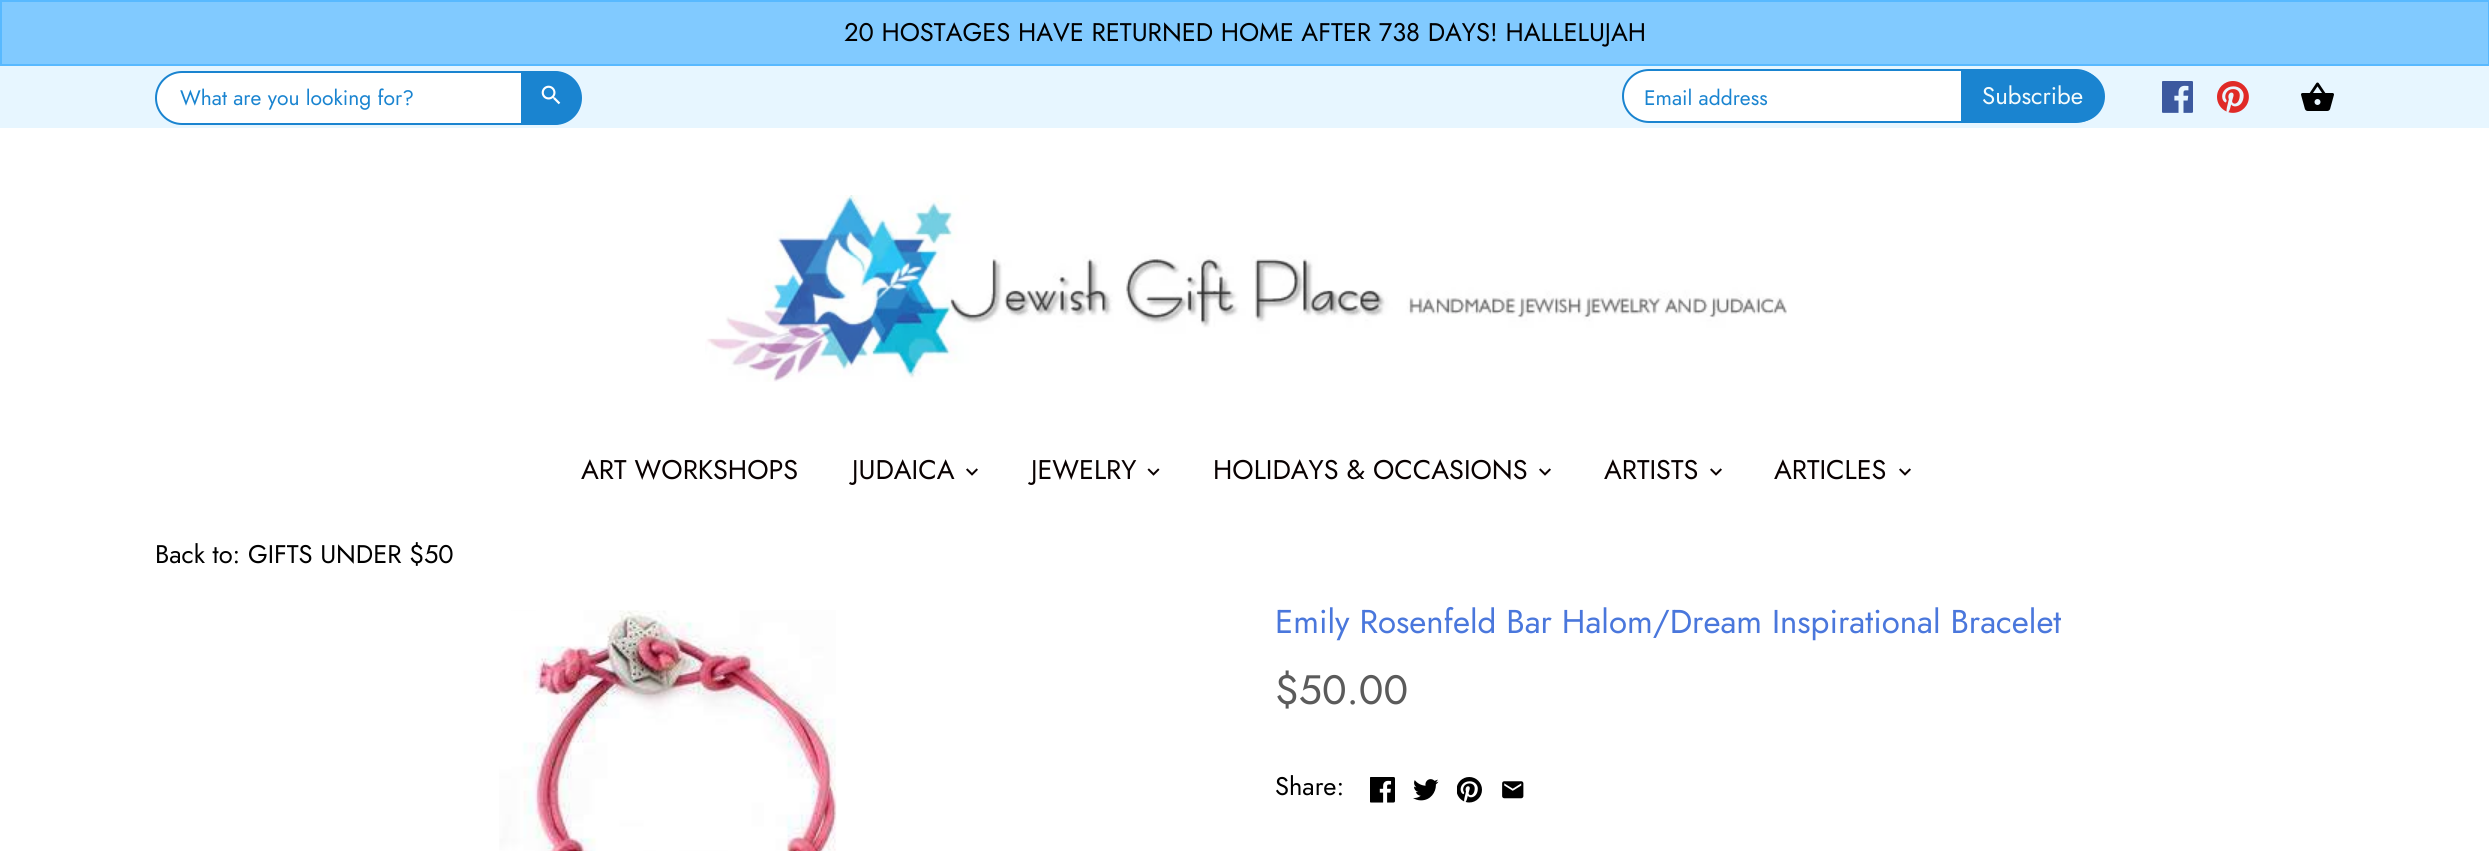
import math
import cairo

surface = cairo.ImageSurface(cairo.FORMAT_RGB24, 2489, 851)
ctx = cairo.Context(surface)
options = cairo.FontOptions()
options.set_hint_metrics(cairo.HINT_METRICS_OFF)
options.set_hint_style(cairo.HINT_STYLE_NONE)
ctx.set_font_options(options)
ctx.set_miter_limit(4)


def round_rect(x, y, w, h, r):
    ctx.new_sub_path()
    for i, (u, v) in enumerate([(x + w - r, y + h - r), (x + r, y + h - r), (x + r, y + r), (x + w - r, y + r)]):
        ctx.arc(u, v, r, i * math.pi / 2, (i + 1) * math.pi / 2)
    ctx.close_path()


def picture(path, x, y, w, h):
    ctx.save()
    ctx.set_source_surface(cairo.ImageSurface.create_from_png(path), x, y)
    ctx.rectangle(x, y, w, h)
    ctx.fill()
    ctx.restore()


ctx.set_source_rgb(1, 1, 1)
ctx.paint()
ctx.set_source_rgb(0.506, 0.792, 1)
ctx.rectangle(1, 1, 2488, 64)
ctx.fill_preserve()
ctx.set_source_rgb(0.345, 0.725, 1)
ctx.stroke()
ctx.select_font_face("Jost")
ctx.set_font_size(25.5)
ctx.set_source_rgb(0, 0, 0)
ctx.move_to(844, 41)
ctx.show_text("20 HOSTAGES HAVE RETURNED HOME AFTER 738 DAYS! HALLELUJAH")
ctx.set_source_rgb(0.906, 0.961, 1)
ctx.rectangle(0, 66, 2489, 62)
ctx.fill()
ctx.set_source_rgb(1, 1, 1)
round_rect(156, 72, 422, 52, 26)
ctx.fill_preserve()
ctx.set_source_rgb(0.102, 0.518, 0.816)
ctx.stroke()
ctx.set_font_size(21)
ctx.move_to(180, 105)
ctx.show_text("What are you looking for?")
ctx.new_path()
ctx.move_to(521, 71)
ctx.line_to(555, 71)
ctx.curve_to(570, 71, 582, 83, 582, 98)
ctx.curve_to(582, 113, 570, 125, 555, 125)
ctx.line_to(521, 125)
ctx.close_path()
ctx.fill()
picture("img1.png", 541, 85, 20, 20)
ctx.set_source_rgb(1, 1, 1)
round_rect(1623, 70, 479, 52, 26)
ctx.fill_preserve()
ctx.set_source_rgb(0.102, 0.518, 0.816)
ctx.stroke()
ctx.move_to(1644, 105)
ctx.show_text("Email address")
ctx.new_path()
ctx.move_to(1961, 71)
ctx.line_to(2079.5, 71)
ctx.curve_to(2093.5, 71, 2105, 82.5, 2105, 96.5)
ctx.curve_to(2105, 110.5, 2093.5, 122, 2079.5, 122)
ctx.line_to(1961, 122)
ctx.close_path()
ctx.fill()
ctx.set_font_size(24)
ctx.set_source_rgb(0.957, 0.984, 0.988)
ctx.move_to(1982, 104)
ctx.show_text("Subscribe")
picture("img2.png", 2162, 81, 31, 32)
picture("img3.png", 2217, 81, 32, 32)
picture("img4.png", 2301, 82, 33, 29)
picture("img5.png", 705, 195, 1082, 187)
ctx.set_font_size(27)
ctx.set_source_rgb(0.039, 0.004, 0.004)
ctx.move_to(581, 479)
ctx.show_text("ART WORKSHOPS")
ctx.move_to(852, 479)
ctx.show_text("JUDAICA")
picture("img6.png", 966, 468, 12, 8)
ctx.move_to(1031, 479)
ctx.show_text("JEWELRY")
picture("img7.png", 1147, 468, 13, 8)
ctx.move_to(1213, 479)
ctx.show_text("HOLIDAYS & OCCASIONS")
picture("img6.png", 1539, 468, 12, 8)
ctx.move_to(1604, 479)
ctx.show_text("ARTISTS")
picture("img6.png", 1710, 468, 12, 8)
ctx.move_to(1774, 479)
ctx.show_text("ARTICLES")
picture("img6.png", 1899, 468, 12, 8)
ctx.set_font_size(25.5)
ctx.set_source_rgb(0, 0, 0)
ctx.move_to(155, 563)
ctx.show_text("Back to: GIFTS UNDER $50")
picture("img8.png", 499, 610, 338, 241)
ctx.set_font_size(33)
ctx.set_source_rgb(0.29, 0.467, 0.863)
ctx.move_to(1275, 633)
ctx.show_text("Emily Rosenfeld Bar Halom/Dream Inspirational Bracelet")
ctx.set_font_size(41)
ctx.set_source_rgb(0.357, 0.357, 0.357)
ctx.move_to(1275, 704)
ctx.show_text("$50.00")
ctx.set_font_size(25.5)
ctx.set_source_rgb(0, 0, 0)
ctx.move_to(1275, 795)
ctx.show_text("Share:")
picture("img9.png", 1370, 777, 25, 26)
picture("img10.png", 1413, 779, 26, 22)
picture("img11.png", 1457, 777, 25, 26)
picture("img12.png", 1502, 781, 22, 18)
surface.write_to_png("page.png")
